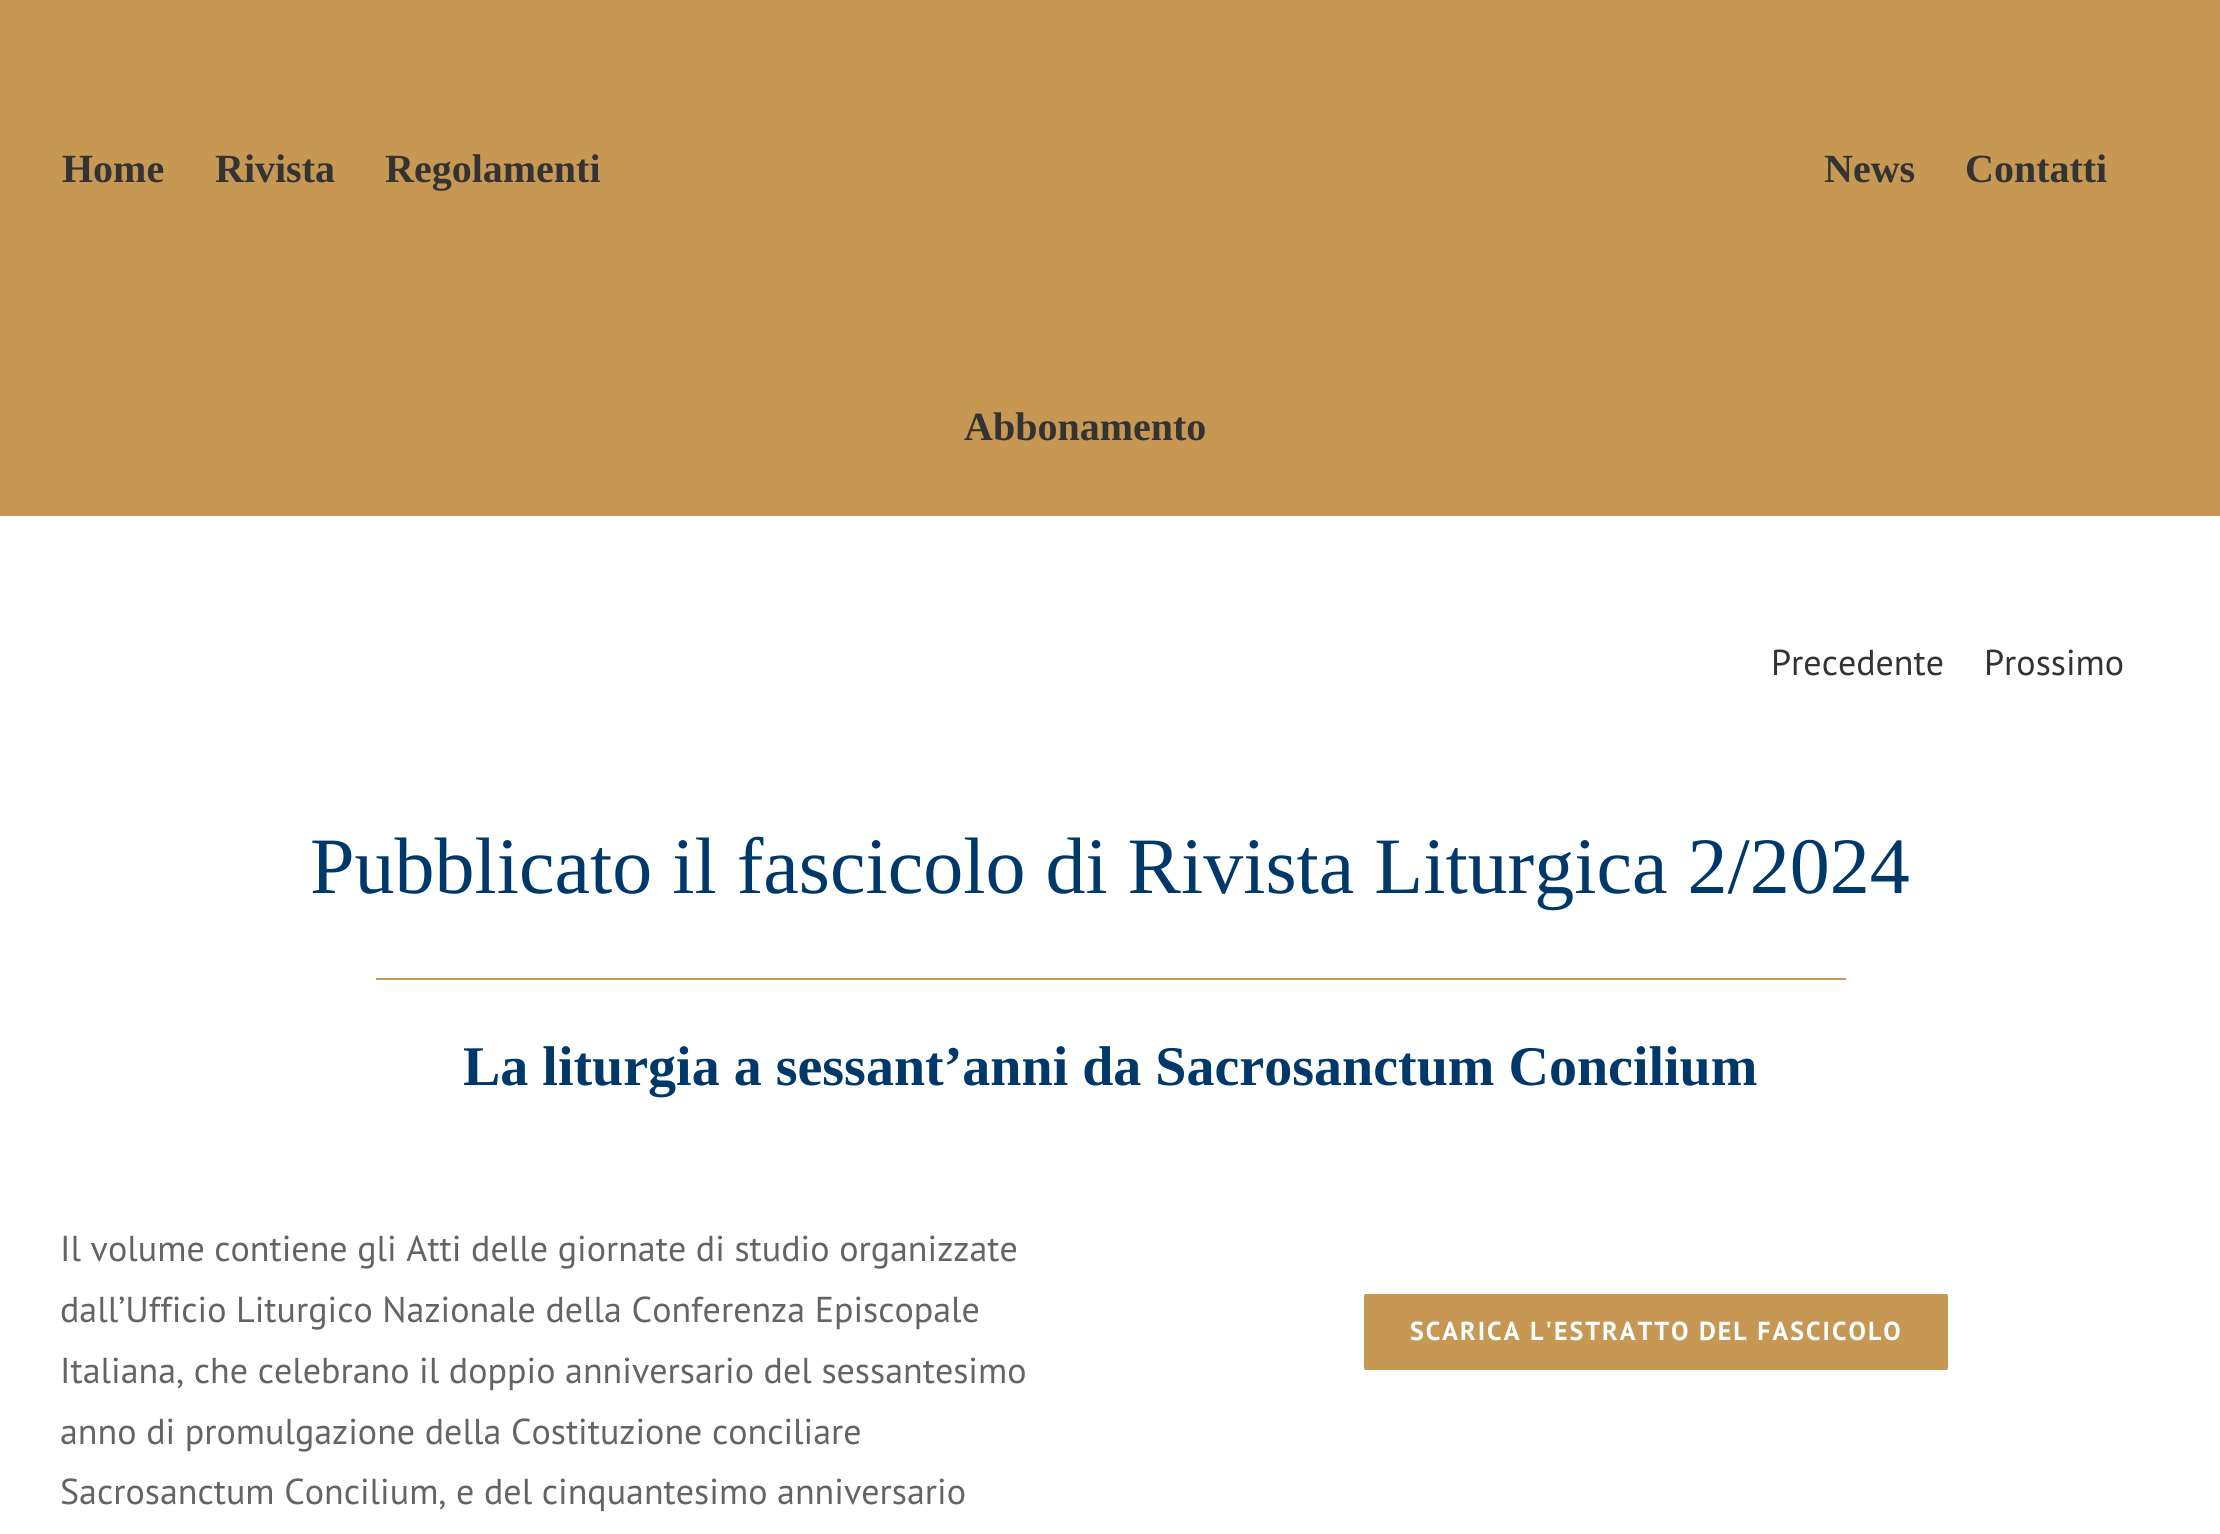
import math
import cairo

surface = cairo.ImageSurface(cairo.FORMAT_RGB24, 2220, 1534)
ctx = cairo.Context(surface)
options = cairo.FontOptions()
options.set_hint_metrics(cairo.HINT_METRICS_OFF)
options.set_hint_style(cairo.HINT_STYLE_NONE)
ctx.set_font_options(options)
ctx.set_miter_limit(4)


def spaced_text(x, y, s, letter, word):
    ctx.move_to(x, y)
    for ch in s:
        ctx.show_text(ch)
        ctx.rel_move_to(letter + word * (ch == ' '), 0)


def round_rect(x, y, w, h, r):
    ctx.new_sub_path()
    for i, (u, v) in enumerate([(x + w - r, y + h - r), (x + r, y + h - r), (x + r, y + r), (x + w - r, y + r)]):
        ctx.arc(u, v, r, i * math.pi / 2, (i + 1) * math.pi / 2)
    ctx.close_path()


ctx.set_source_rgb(1, 1, 1)
ctx.paint()
ctx.set_source_rgb(0.78, 0.596, 0.329)
ctx.rectangle(0, 0, 2220, 516)
ctx.fill()
ctx.select_font_face("Liberation Serif", cairo.FONT_SLANT_NORMAL, cairo.FONT_WEIGHT_BOLD)
ctx.set_font_size(40)
ctx.set_source_rgb(0.2, 0.2, 0.2)
ctx.move_to(62, 182)
ctx.show_text("Home")
ctx.move_to(215, 182)
ctx.show_text("Rivista")
ctx.move_to(385, 182)
ctx.show_text("Regolamenti")
ctx.move_to(1824, 182)
ctx.show_text("News")
ctx.move_to(1965, 182)
ctx.show_text("Contatti")
ctx.move_to(964, 440)
ctx.show_text("Abbonamento")
ctx.select_font_face("PT Sans")
ctx.set_font_size(36)
ctx.move_to(1771, 675)
ctx.show_text("Precedente")
ctx.move_to(1984, 675)
ctx.show_text("Prossimo")
ctx.select_font_face("Liberation Serif")
ctx.set_font_size(80)
ctx.set_source_rgb(0, 0.22, 0.412)
ctx.move_to(310, 893)
ctx.show_text("Pubblicato il fascicolo di Rivista Liturgica 2/2024")
ctx.set_source_rgb(0.78, 0.596, 0.329)
ctx.rectangle(376, 978, 1470, 2)
ctx.fill()
ctx.select_font_face("Liberation Serif", cairo.FONT_SLANT_NORMAL, cairo.FONT_WEIGHT_BOLD)
ctx.set_font_size(56)
ctx.set_source_rgb(0, 0.22, 0.412)
ctx.move_to(463, 1085)
ctx.show_text("La liturgia a sessant’anni da Sacrosanctum Concilium")
ctx.select_font_face("PT Sans")
ctx.set_font_size(36)
ctx.set_source_rgb(0.392, 0.392, 0.392)
ctx.move_to(60, 1261)
ctx.show_text("Il volume contiene gli Atti delle giornate di studio organizzate")
ctx.move_to(60, 1322)
ctx.show_text("dall’Ufficio Liturgico Nazionale della Conferenza Episcopale")
ctx.move_to(60, 1383)
ctx.show_text("Italiana, che celebrano il doppio anniversario del sessantesimo")
ctx.move_to(60, 1444)
ctx.show_text("anno di promulgazione della Costituzione conciliare")
ctx.move_to(60, 1504)
ctx.show_text("Sacrosanctum Concilium, e del cinquantesimo anniversario")
ctx.set_source_rgb(0.78, 0.596, 0.329)
round_rect(1363, 1293, 586, 78, 3)
ctx.fill_preserve()
ctx.set_source_rgb(1, 1, 1)
ctx.stroke()
ctx.select_font_face("PT Sans", cairo.FONT_SLANT_NORMAL, cairo.FONT_WEIGHT_BOLD)
ctx.set_font_size(26)
spaced_text(1410, 1340, "SCARICA L'ESTRATTO DEL FASCICOLO", 2, 0)
surface.write_to_png("page.png")
